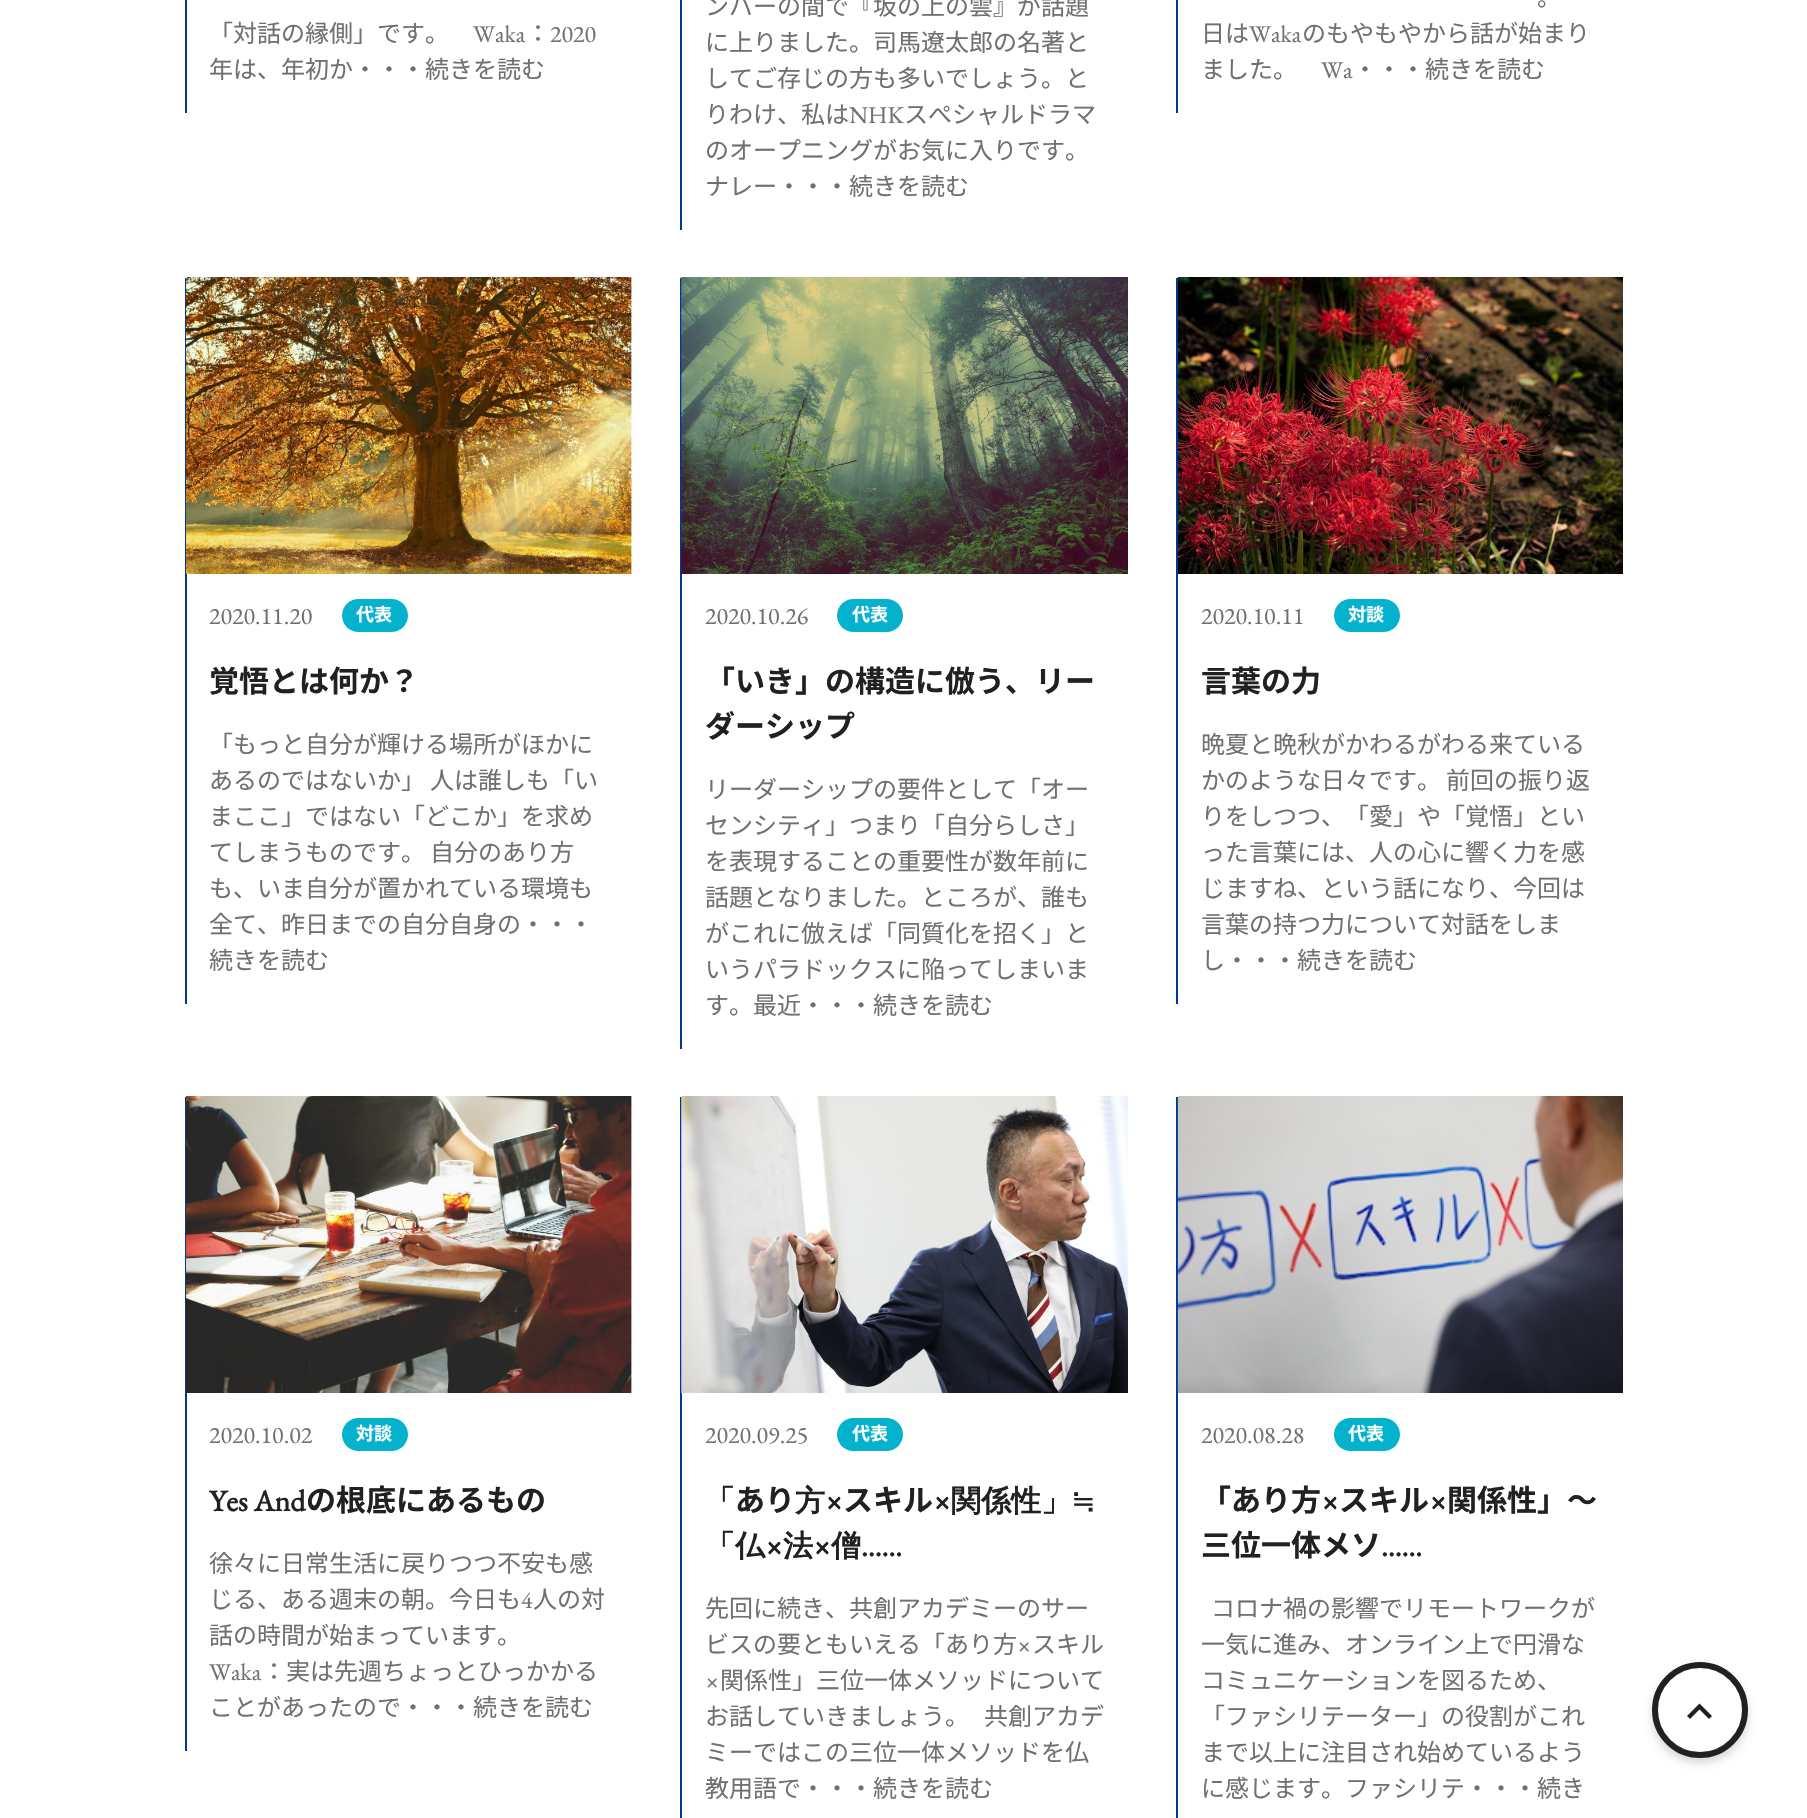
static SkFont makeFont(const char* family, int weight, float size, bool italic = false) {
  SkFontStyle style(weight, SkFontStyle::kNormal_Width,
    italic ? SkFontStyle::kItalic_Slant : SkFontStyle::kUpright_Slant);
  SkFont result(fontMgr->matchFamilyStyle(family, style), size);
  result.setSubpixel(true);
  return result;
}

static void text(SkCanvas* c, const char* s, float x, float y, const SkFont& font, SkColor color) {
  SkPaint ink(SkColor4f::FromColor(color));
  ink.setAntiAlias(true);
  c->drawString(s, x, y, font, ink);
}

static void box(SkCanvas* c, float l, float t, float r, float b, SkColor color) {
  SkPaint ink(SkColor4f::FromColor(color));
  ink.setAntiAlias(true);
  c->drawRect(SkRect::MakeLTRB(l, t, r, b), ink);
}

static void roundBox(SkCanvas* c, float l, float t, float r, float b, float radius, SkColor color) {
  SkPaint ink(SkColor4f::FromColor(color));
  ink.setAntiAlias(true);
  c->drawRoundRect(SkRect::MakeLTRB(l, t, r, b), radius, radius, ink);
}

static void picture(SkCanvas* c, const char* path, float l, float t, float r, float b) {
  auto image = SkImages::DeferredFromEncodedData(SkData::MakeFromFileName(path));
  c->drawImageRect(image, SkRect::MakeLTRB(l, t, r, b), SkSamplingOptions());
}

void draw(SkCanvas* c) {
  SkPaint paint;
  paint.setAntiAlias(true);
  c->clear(0xffffffff);
  box(c, 185, 0, 187, 113, 0xff003993);
  SkFont face1 = makeFont("Noto Sans JP", 400, 24);
  text(c, "「対話の縁側」です。", 209, 42, face1, 0xff707070);
  SkFont face2 = makeFont("EB Garamond", 400, 24);
  text(c, "Waka", 473, 42, face2, 0xff707070);
  text(c, "：", 526, 42, face1, 0xff707070);
  text(c, "2020", 550, 42, face2, 0xff707070);
  text(c, "年は、年初か・・・続きを読む", 209, 78, face1, 0xff707070);
  box(c, 680, 0, 682, 230, 0xff003993);
  text(c, "ンバーの間で『坂の上の雲』が話題", 705, 15, face1, 0xff707070);
  text(c, "に上りました。司馬遼太郎の名著と", 705, 51, face1, 0xff707070);
  text(c, "してご存じの方も多いでしょう。と", 705, 87, face1, 0xff707070);
  text(c, "りわけ、私は", 705, 123, face1, 0xff707070);
  text(c, "NHK", 849, 123, face2, 0xff707070);
  text(c, "スぺシャルドラマ", 904, 123, face1, 0xff707070);
  text(c, "のオープニングがお気に入りです。", 705, 159, face1, 0xff707070);
  text(c, "ナレー・・・続きを読む", 705, 195, face1, 0xff707070);
  box(c, 1176, 0, 1178, 113, 0xff003993);
  text(c, "。", 1537, 6, face1, 0xff707070);
  text(c, "日は", 1201, 42, face1, 0xff707070);
  text(c, "Waka", 1249, 42, face2, 0xff707070);
  text(c, "のもやもやから話が始まり", 1302, 42, face1, 0xff707070);
  text(c, "ました。", 1201, 78, face1, 0xff707070);
  text(c, "Wa", 1321, 78, face2, 0xff707070);
  text(c, "・・・続きを読む", 1353, 78, face1, 0xff707070);
  box(c, 185, 278, 187, 1004, 0xff003993);
  picture(c, "img_01.png", 186, 277, 632, 574);
  text(c, "2020.11.20", 209, 624, face2, 0xff707070);
  roundBox(c, 342, 599, 408, 632, 16.5f, 0xff05b2cd);
  SkFont face3 = makeFont("Noto Sans JP", 700, 18);
  text(c, "代表", 356, 621, face3, 0xffffffff);
  SkFont face4 = makeFont("Noto Sans JP", 700, 30);
  text(c, "覚悟とは何か？", 209, 692, face4, 0xff212121);
  text(c, "「もっと自分が輝ける場所がほかに", 209, 753, face1, 0xff707070);
  text(c, "あるのではないか」", 209, 789, face1, 0xff707070);
  text(c, "人は誰しも「い", 430, 789, face1, 0xff707070);
  text(c, "まここ」ではない「どこか」を求め", 209, 825, face1, 0xff707070);
  text(c, "てしまうものです。", 209, 861, face1, 0xff707070);
  text(c, "自分のあり方", 430, 861, face1, 0xff707070);
  text(c, "も、いま自分が置かれている環境も", 209, 897, face1, 0xff707070);
  text(c, "全て、昨日までの自分自身の・・・", 209, 933, face1, 0xff707070);
  text(c, "続きを読む", 209, 969, face1, 0xff707070);
  box(c, 680, 278, 682, 1049, 0xff003993);
  picture(c, "img_02.png", 681, 277, 1128, 574);
  text(c, "2020.10.26", 705, 624, face2, 0xff707070);
  roundBox(c, 837, 599, 903, 632, 16.5f, 0xff05b2cd);
  text(c, "代表", 852, 621, face3, 0xffffffff);
  text(c, "「いき」の構造に倣う、リー", 705, 692, face4, 0xff212121);
  text(c, "ダーシップ", 705, 737, face4, 0xff212121);
  text(c, "リーダーシップの要件として「オー", 705, 798, face1, 0xff707070);
  text(c, "センシティ」つまり「自分らしさ」", 705, 834, face1, 0xff707070);
  text(c, "を表現することの重要性が数年前に", 705, 870, face1, 0xff707070);
  text(c, "話題となりました。ところが、誰も", 705, 906, face1, 0xff707070);
  text(c, "がこれに倣えば「同質化を招く」と", 705, 942, face1, 0xff707070);
  text(c, "いうパラドックスに陥ってしまいま", 705, 978, face1, 0xff707070);
  text(c, "す。最近・・・続きを読む", 705, 1014, face1, 0xff707070);
  box(c, 1176, 278, 1178, 1004, 0xff003993);
  picture(c, "img_03.png", 1177, 277, 1623, 574);
  text(c, "2020.10.11", 1201, 624, face2, 0xff707070);
  roundBox(c, 1334, 599, 1400, 632, 16.5f, 0xff05b2cd);
  text(c, "対談", 1348, 621, face3, 0xffffffff);
  text(c, "言葉の力", 1201, 692, face4, 0xff212121);
  text(c, "晩夏と晩秋がかわるがわる来ている", 1201, 753, face1, 0xff707070);
  text(c, "かのような日々です。", 1201, 789, face1, 0xff707070);
  text(c, "前回の振り返", 1446, 789, face1, 0xff707070);
  text(c, "りをしつつ、「愛」や「覚悟」とい", 1201, 825, face1, 0xff707070);
  text(c, "った言葉には、人の心に響く力を感", 1201, 861, face1, 0xff707070);
  text(c, "じますね、という話になり、今回は", 1201, 897, face1, 0xff707070);
  text(c, "言葉の持つ力について対話をしま", 1201, 933, face1, 0xff707070);
  text(c, "し・・・続きを読む", 1201, 969, face1, 0xff707070);
  box(c, 185, 1097, 187, 1751, 0xff003993);
  picture(c, "img_04.png", 186, 1096, 632, 1393);
  text(c, "2020.10.02", 209, 1443, face2, 0xff707070);
  roundBox(c, 342, 1418, 408, 1451, 16.5f, 0xff05b2cd);
  text(c, "対談", 356, 1440, face3, 0xffffffff);
  SkFont face5 = makeFont("EB Garamond", 700, 30);
  text(c, "Yes And", 209, 1511, face5, 0xff212121);
  text(c, "の根底にあるもの", 306, 1511, face4, 0xff212121);
  text(c, "徐々に日常生活に戻りつつ不安も感", 209, 1572, face1, 0xff707070);
  text(c, "じる、ある週末の朝。今日も", 209, 1608, face1, 0xff707070);
  text(c, "4", 521, 1608, face2, 0xff707070);
  text(c, "人の対", 533, 1608, face1, 0xff707070);
  text(c, "話の時間が始まっています。", 209, 1644, face1, 0xff707070);
  text(c, "Waka", 209, 1680, face2, 0xff707070);
  text(c, "：実は先週ちょっとひっかかる", 262, 1680, face1, 0xff707070);
  text(c, "ことがあったので・・・続きを読む", 209, 1716, face1, 0xff707070);
  box(c, 680, 1097, 682, 1818, 0xff003993);
  picture(c, "img_05.png", 681, 1096, 1128, 1393);
  text(c, "2020.09.25", 705, 1443, face2, 0xff707070);
  roundBox(c, 837, 1418, 903, 1451, 16.5f, 0xff05b2cd);
  text(c, "代表", 852, 1440, face3, 0xffffffff);
  SkFont face6 = makeFont("WenQuanYi Zen Hei", 700, 30);
  text(c, "「", 705, 1511, face6, 0xff212121);
  text(c, "あり", 735, 1511, face4, 0xff212121);
  text(c, "方", 795, 1511, face6, 0xff212121);
  text(c, "×", 825, 1511, face5, 0xff212121);
  text(c, "スキル", 843, 1511, face4, 0xff212121);
  text(c, "×", 933, 1511, face5, 0xff212121);
  text(c, "関係性」≒", 951, 1511, face6, 0xff212121);
  text(c, "「仏", 705, 1556, face6, 0xff212121);
  text(c, "×", 765, 1556, face5, 0xff212121);
  text(c, "法", 783, 1556, face6, 0xff212121);
  text(c, "×", 813, 1556, face5, 0xff212121);
  text(c, "僧", 831, 1556, face6, 0xff212121);
  text(c, "……", 861, 1556, face5, 0xff212121);
  text(c, "先回に続き、共創アカデミーのサー", 705, 1617, face1, 0xff707070);
  text(c, "ビスの要ともいえる「あり方", 705, 1653, face1, 0xff707070);
  text(c, "×", 1017, 1653, face2, 0xff707070);
  text(c, "スキル", 1032, 1653, face1, 0xff707070);
  text(c, "×", 705, 1689, face2, 0xff707070);
  text(c, "関係性」三位一体メソッドについて", 720, 1689, face1, 0xff707070);
  text(c, "お話していきましょう。", 705, 1725, face1, 0xff707070);
  text(c, "共創アカデ", 984, 1725, face1, 0xff707070);
  text(c, "ミーではこの三位一体メソッドを仏", 705, 1761, face1, 0xff707070);
  text(c, "教用語で・・・続きを読む", 705, 1797, face1, 0xff707070);
  box(c, 1176, 1097, 1178, 1818, 0xff003993);
  picture(c, "img_06.png", 1177, 1096, 1623, 1393);
  text(c, "2020.08.28", 1201, 1443, face2, 0xff707070);
  roundBox(c, 1334, 1418, 1400, 1451, 16.5f, 0xff05b2cd);
  text(c, "代表", 1348, 1440, face3, 0xffffffff);
  text(c, "「あり方", 1201, 1511, face4, 0xff212121);
  text(c, "×", 1321, 1511, face5, 0xff212121);
  text(c, "スキル", 1339, 1511, face4, 0xff212121);
  text(c, "×", 1429, 1511, face5, 0xff212121);
  text(c, "関係性」〜", 1447, 1511, face4, 0xff212121);
  text(c, "三位一体メソ", 1201, 1556, face4, 0xff212121);
  text(c, "……", 1381, 1556, face5, 0xff212121);
  text(c, "コロナ禍の影響でリモートワークが", 1211, 1617, face1, 0xff707070);
  text(c, "一気に進み、オンライン上で円滑な", 1201, 1653, face1, 0xff707070);
  text(c, "コミュニケーションを図るため、", 1201, 1689, face1, 0xff707070);
  text(c, "「ファシリテーター」の役割がこれ", 1201, 1725, face1, 0xff707070);
  text(c, "まで以上に注目され始めているよう", 1201, 1761, face1, 0xff707070);
  text(c, "に感じます。ファシリテ・・・続き", 1201, 1797, face1, 0xff707070);
  paint.setColor(0x29000000);
  paint.setMaskFilter(SkMaskFilter::MakeBlur(kNormal_SkBlurStyle, 4.5f));
  c->drawRoundRect(SkRect::MakeLTRB(1652, 1667, 1748, 1763), 48, 48, paint);
  paint.setMaskFilter(nullptr);
  paint.setColor(0xffffffff);
  c->drawCircle(1700, 1710, 45, paint);
  paint.setStyle(SkPaint::kStroke_Style);
  paint.setStrokeWidth(6);
  paint.setColor(0xff212121);
  c->drawCircle(1700, 1710, 45, paint);
  paint.setStyle(SkPaint::kFill_Style);
  c->drawPath(SkPathBuilder().moveTo(1699.5f, 1703.5f).lineTo(1712, 1716).lineTo(1699.5f, 1728.5f).lineTo(1687, 1716).close().detach(), paint);
  paint.setColor(0xffffffff);
  c->drawPath(SkPathBuilder().moveTo(1699.5f, 1709.5f).lineTo(1712, 1722).lineTo(1699.5f, 1734.5f).lineTo(1687, 1722).close().detach(), paint);
}
